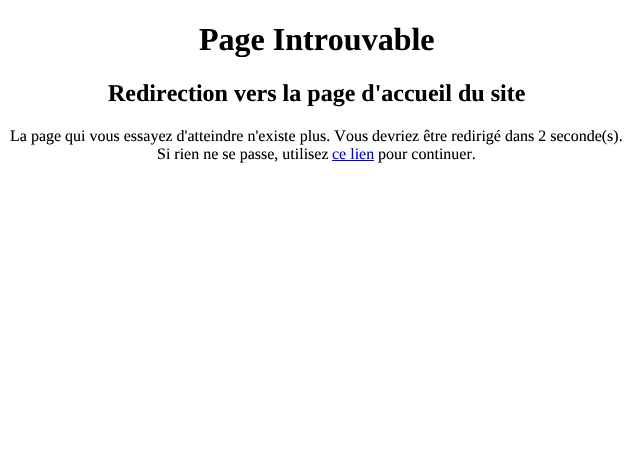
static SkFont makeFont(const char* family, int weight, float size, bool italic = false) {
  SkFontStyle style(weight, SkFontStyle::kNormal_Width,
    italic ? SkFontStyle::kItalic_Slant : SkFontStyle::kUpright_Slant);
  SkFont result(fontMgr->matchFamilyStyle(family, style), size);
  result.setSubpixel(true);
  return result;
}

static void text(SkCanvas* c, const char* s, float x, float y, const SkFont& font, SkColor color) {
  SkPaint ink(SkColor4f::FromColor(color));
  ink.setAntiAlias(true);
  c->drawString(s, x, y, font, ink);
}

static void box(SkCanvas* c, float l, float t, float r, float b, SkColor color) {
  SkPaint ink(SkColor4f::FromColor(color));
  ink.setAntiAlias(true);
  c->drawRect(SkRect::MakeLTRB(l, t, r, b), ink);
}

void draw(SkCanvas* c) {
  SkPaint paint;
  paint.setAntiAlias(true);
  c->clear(0xffffffff);
  SkFont face1 = makeFont("Liberation Serif", 700, 32);
  text(c, "Page Introuvable", 199, 50, face1, 0xff000000);
  SkFont face2 = makeFont("Liberation Serif", 700, 24);
  text(c, "Redirection vers la page d'accueil du site", 108, 101, face2, 0xff000000);
  SkFont face3 = makeFont("Liberation Serif", 400, 16);
  text(c, "La page qui vous essayez d'atteindre n'existe plus. Vous devriez être redirigé dans 2 seconde(s).", 10, 141, face3, 0xff000000);
  text(c, "Si rien ne se passe, utilisez", 157, 159, face3, 0xff000000);
  text(c, "ce lien", 332, 159, face3, 0xff0000ee);
  box(c, 332, 160, 374, 161, 0xff0000ee);
  text(c, "pour continuer.", 378, 159, face3, 0xff000000);
}
